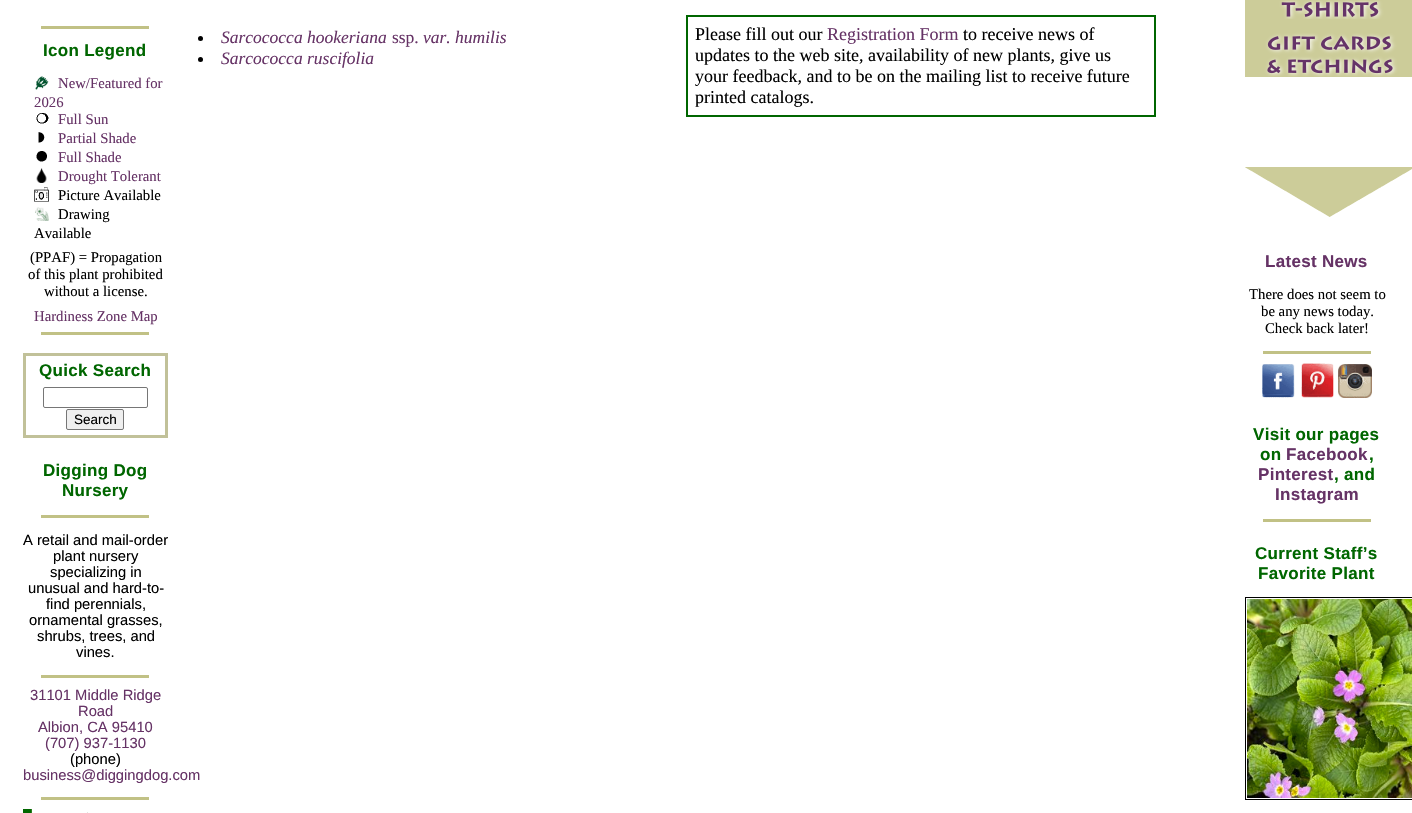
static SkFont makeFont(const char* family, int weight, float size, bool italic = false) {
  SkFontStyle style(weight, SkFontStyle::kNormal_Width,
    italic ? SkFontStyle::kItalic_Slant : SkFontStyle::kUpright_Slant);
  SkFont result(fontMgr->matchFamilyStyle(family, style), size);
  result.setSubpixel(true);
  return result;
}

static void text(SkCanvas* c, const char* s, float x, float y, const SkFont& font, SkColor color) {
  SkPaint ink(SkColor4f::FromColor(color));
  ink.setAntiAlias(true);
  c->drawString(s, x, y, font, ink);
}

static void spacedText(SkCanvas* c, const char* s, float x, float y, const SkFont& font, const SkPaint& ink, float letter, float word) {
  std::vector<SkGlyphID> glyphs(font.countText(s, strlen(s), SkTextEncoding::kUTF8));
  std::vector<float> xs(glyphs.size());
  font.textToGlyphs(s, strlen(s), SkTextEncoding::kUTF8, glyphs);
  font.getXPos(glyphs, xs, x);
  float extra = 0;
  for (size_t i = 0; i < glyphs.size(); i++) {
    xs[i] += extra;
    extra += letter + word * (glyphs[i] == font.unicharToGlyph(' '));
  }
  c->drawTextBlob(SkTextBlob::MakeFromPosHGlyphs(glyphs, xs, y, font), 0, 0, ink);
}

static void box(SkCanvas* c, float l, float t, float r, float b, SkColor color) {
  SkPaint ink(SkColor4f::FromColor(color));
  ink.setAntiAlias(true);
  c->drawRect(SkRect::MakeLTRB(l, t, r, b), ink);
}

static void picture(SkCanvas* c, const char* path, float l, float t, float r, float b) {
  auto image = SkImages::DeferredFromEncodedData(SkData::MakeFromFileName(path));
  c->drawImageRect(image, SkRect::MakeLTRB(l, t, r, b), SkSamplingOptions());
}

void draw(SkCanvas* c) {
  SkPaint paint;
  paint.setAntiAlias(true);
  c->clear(0xffffffff);
  box(c, 41, 26, 149, 29, 0xffc1c185);
  SkFont face1 = makeFont("Liberation Sans", 700, 17);
  paint.setColor(0xff006600);
  spacedText(c, "Icon Legend", 43, 56, face1, paint, 0.3f, 0);
  picture(c, "img_01.png", 35, 76, 49, 90);
  SkFont face2 = makeFont("Liberation Serif", 400, 14.75f);
  text(c, "New/Featured for", 58, 88, face2, 0xff663366);
  text(c, "2026", 34, 107, face2, 0xff663366);
  picture(c, "img_02.png", 36, 113, 49, 124);
  text(c, "Full Sun", 58, 124, face2, 0xff663366);
  picture(c, "img_03.png", 38, 132, 45, 143);
  text(c, "Partial Shade", 58, 143, face2, 0xff663366);
  picture(c, "img_04.png", 36, 151, 47, 162);
  text(c, "Full Shade", 58, 162, face2, 0xff663366);
  picture(c, "img_05.png", 36, 168, 47, 183);
  text(c, "Drought Tolerant", 58, 181, face2, 0xff663366);
  picture(c, "img_06.png", 34, 187, 49, 202);
  text(c, "Picture Available", 58, 200, face2, 0xff000000);
  picture(c, "img_07.png", 35, 207, 49, 221);
  text(c, "Drawing", 58, 219, face2, 0xff000000);
  text(c, "Available", 34, 238, face2, 0xff000000);
  text(c, "(PPAF) = Propagation", 30, 262, face2, 0xff000000);
  text(c, "of this plant prohibited", 28, 279, face2, 0xff000000);
  text(c, "without a license.", 44, 296, face2, 0xff000000);
  text(c, "Hardiness Zone Map", 34, 321, face2, 0xff663366);
  box(c, 41, 332, 149, 335, 0xffc1c185);
  paint.setStyle(SkPaint::kStroke_Style);
  paint.setStrokeWidth(3);
  paint.setColor(0xffc1c199);
  c->drawRect(SkRect::MakeLTRB(24.5f, 354.5f, 166.5f, 436.5f), paint);
  paint.setStyle(SkPaint::kFill_Style);
  paint.setColor(0xff006600);
  spacedText(c, "Quick Search", 39, 376, face1, paint, 0.3f, 0);
  paint.setStyle(SkPaint::kStroke_Style);
  paint.setStrokeWidth(1);
  paint.setColor(0xff767676);
  c->drawRoundRect(SkRect::MakeLTRB(43.5f, 387.5f, 147.5f, 407.5f), 1.5f, 1.5f, paint);
  paint.setStyle(SkPaint::kFill_Style);
  paint.setColor(0xffefefef);
  c->drawRoundRect(SkRect::MakeLTRB(66.5f, 409.5f, 123.5f, 429.5f), 1.5f, 1.5f, paint);
  paint.setStyle(SkPaint::kStroke_Style);
  paint.setColor(0xff767676);
  c->drawRoundRect(SkRect::MakeLTRB(66.5f, 409.5f, 123.5f, 429.5f), 1.5f, 1.5f, paint);
  SkFont face3 = makeFont("Liberation Sans", 400, 13.5f);
  text(c, "Search", 74, 424, face3, 0xff000000);
  paint.setStyle(SkPaint::kFill_Style);
  paint.setColor(0xff006600);
  spacedText(c, "Digging Dog", 43, 476, face1, paint, 0.3f, 0);
  spacedText(c, "Nursery", 62, 496, face1, paint, 0.3f, 0);
  box(c, 41, 515, 149, 518, 0xffc1c185);
  SkFont face4 = makeFont("Liberation Sans", 400, 14.75f);
  text(c, "A retail and mail-order", 23, 545, face4, 0xff000000);
  text(c, "plant nursery", 53, 561, face4, 0xff000000);
  text(c, "specializing in", 50, 577, face4, 0xff000000);
  text(c, "unusual and hard-to-", 28, 593, face4, 0xff000000);
  text(c, "find perennials,", 46, 609, face4, 0xff000000);
  text(c, "ornamental grasses,", 29, 625, face4, 0xff000000);
  text(c, "shrubs, trees, and", 37, 641, face4, 0xff000000);
  text(c, "vines.", 76, 657, face4, 0xff000000);
  box(c, 41, 675, 149, 678, 0xffc1c185);
  text(c, "31101 Middle Ridge", 30, 700, face4, 0xff663366);
  text(c, "Road", 78, 716, face4, 0xff663366);
  text(c, "Albion, CA 95410", 38, 732, face4, 0xff663366);
  text(c, "(707) 937-1130", 45, 748, face4, 0xff663366);
  text(c, "(phone)", 70, 764, face4, 0xff000000);
  text(c, "business@diggingdog.com", 23, 780, face4, 0xff663366);
  box(c, 41, 797, 149, 800, 0xffc1c185);
  picture(c, "img_08.png", 23, 809, 88, 813);
  paint.setColor(0xff000000);
  c->drawCircle(200.5f, 38.5f, 2.5f, paint);
  SkFont face5 = makeFont("Liberation Serif", 400, 17.5f, true);
  text(c, "Sarcococca hookeriana", 221, 43, face5, 0xff663366);
  SkFont face6 = makeFont("Liberation Serif", 400, 17.5f);
  text(c, "ssp.", 392, 43, face6, 0xff663366);
  text(c, "var. humilis", 423, 43, face5, 0xff663366);
  c->drawCircle(200.5f, 59.5f, 2.5f, paint);
  text(c, "Sarcococca ruscifolia", 221, 64, face5, 0xff663366);
  paint.setStyle(SkPaint::kStroke_Style);
  paint.setStrokeWidth(2);
  paint.setColor(0xff006600);
  c->drawRect(SkRect::MakeLTRB(687, 16, 1155, 116), paint);
  SkFont face7 = makeFont("Liberation Serif", 400, 18);
  text(c, "Please fill out our", 695, 40, face7, 0xff000000);
  text(c, "Registration Form", 827, 40, face7, 0xff663366);
  text(c, "to receive news of", 963, 40, face7, 0xff000000);
  text(c, "updates to the web site, availability of new plants, give us", 695, 61, face7, 0xff000000);
  text(c, "your feedback, and to be on the mailing list to receive future", 695, 82, face7, 0xff000000);
  text(c, "printed catalogs.", 695, 103, face7, 0xff000000);
  picture(c, "img_09.png", 1245, 0, 1412, 32);
  picture(c, "img_10.png", 1245, 32, 1412, 77);
  picture(c, "img_11.png", 1245, 167, 1412, 217);
  paint.setStyle(SkPaint::kFill_Style);
  paint.setColor(0xff663366);
  spacedText(c, "Latest News", 1265, 267, face1, paint, 0.3f, 0);
  text(c, "There does not seem to", 1249, 299, face2, 0xff000000);
  text(c, "be any news today.", 1261, 316, face2, 0xff000000);
  text(c, "Check back later!", 1265, 333, face2, 0xff000000);
  box(c, 1263, 351, 1371, 354, 0xffc1c185);
  picture(c, "img_12.png", 1262, 364, 1295, 398);
  picture(c, "img_13.png", 1301, 363, 1334, 398);
  picture(c, "img_14.png", 1338, 364, 1372, 398);
  paint.setColor(0xff006600);
  spacedText(c, "Visit our pages", 1253, 440, face1, paint, 0.3f, 0);
  spacedText(c, "on", 1260, 460, face1, paint, 0.3f, 0);
  paint.setColor(0xff663366);
  spacedText(c, "Facebook", 1286, 460, face1, paint, 0.3f, 0);
  paint.setColor(0xff006600);
  spacedText(c, ",", 1369, 460, face1, paint, 0.3f, 0);
  paint.setColor(0xff663366);
  spacedText(c, "Pinterest", 1258, 480, face1, paint, 0.3f, 0);
  paint.setColor(0xff006600);
  spacedText(c, ", and", 1334, 480, face1, paint, 0.3f, 0);
  paint.setColor(0xff663366);
  spacedText(c, "Instagram", 1275, 500, face1, paint, 0.3f, 0);
  box(c, 1263, 519, 1371, 522, 0xffc1c185);
  paint.setColor(0xff006600);
  spacedText(c, "Current Staff’s", 1255, 559, face1, paint, 0.3f, 0);
  spacedText(c, "Favorite Plant", 1258, 579, face1, paint, 0.3f, 0);
  paint.setStyle(SkPaint::kStroke_Style);
  paint.setStrokeWidth(1);
  paint.setColor(0xff000000);
  c->drawRect(SkRect::MakeLTRB(1245.5f, 597.5f, 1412.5f, 799.5f), paint);
  picture(c, "img_15.png", 1247, 599, 1412, 798);
}
